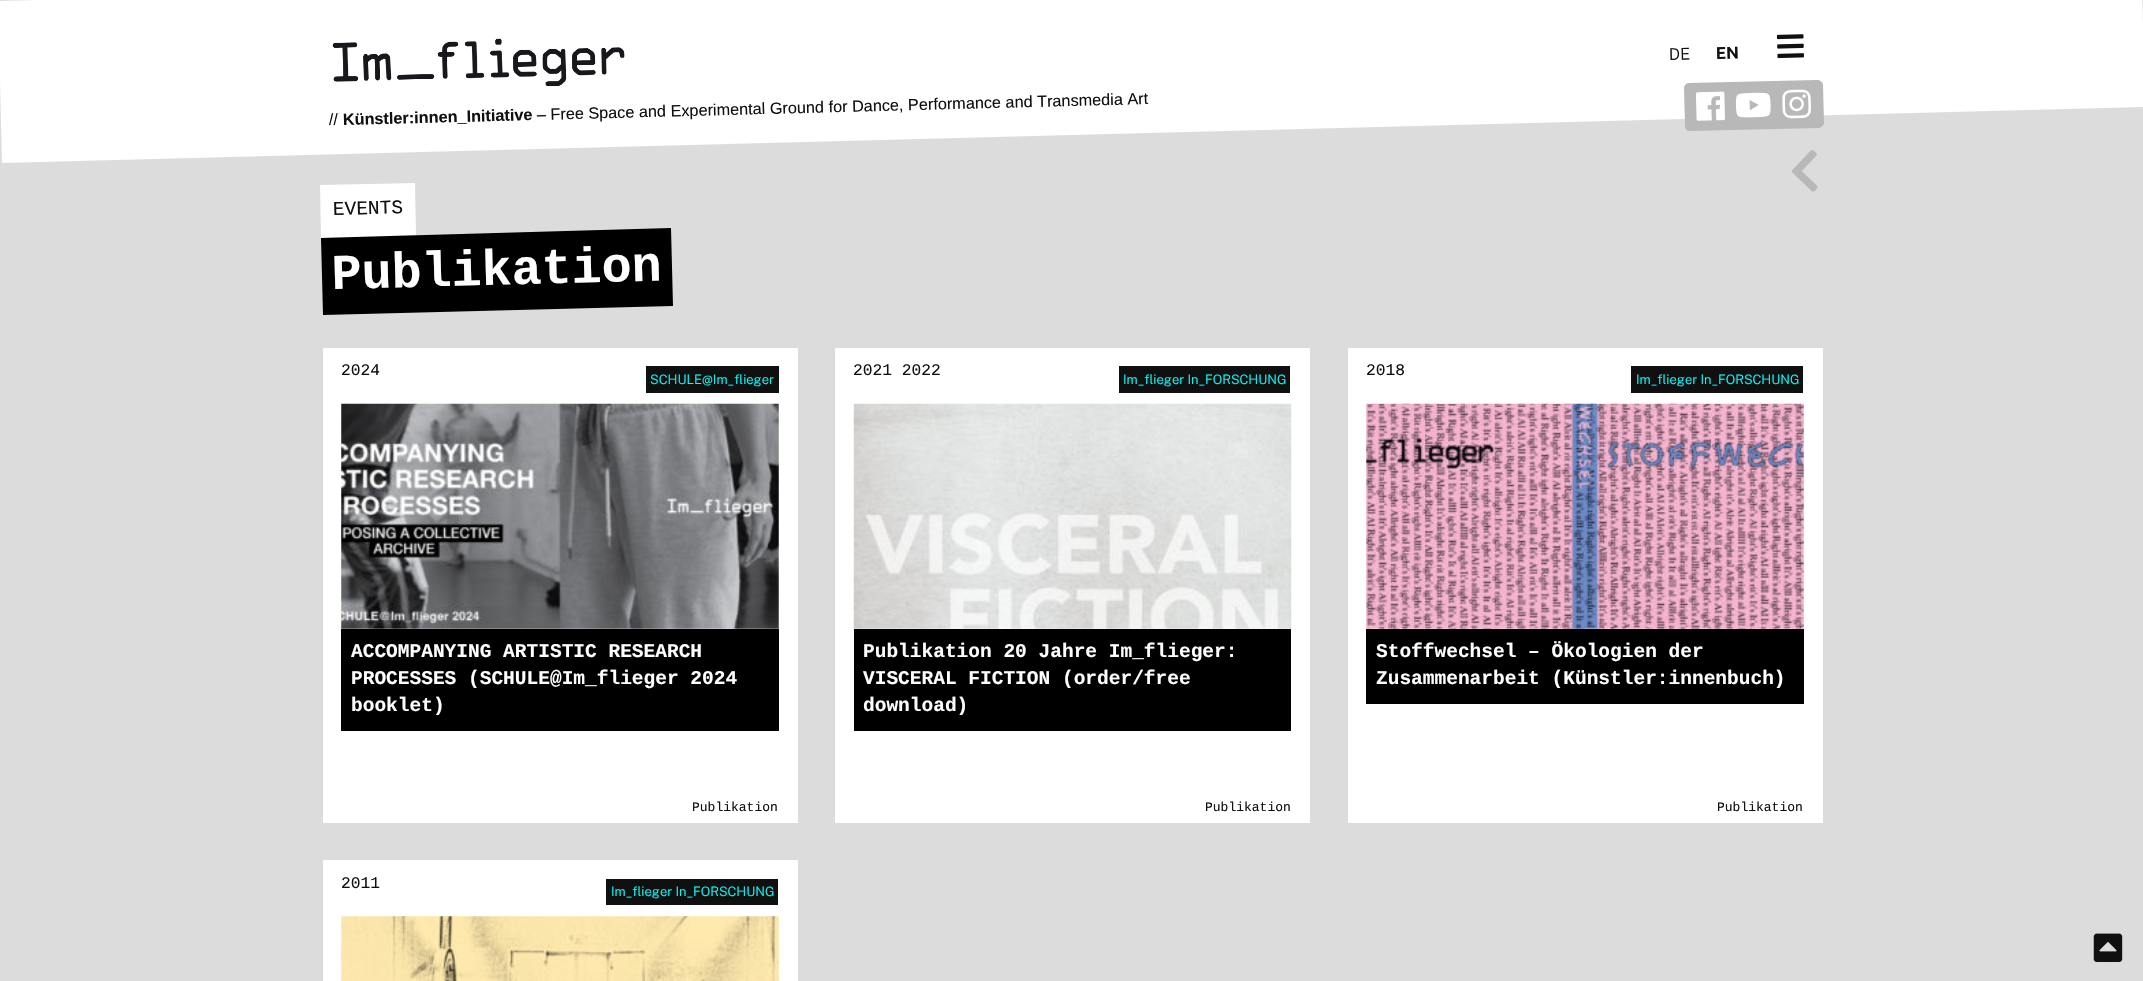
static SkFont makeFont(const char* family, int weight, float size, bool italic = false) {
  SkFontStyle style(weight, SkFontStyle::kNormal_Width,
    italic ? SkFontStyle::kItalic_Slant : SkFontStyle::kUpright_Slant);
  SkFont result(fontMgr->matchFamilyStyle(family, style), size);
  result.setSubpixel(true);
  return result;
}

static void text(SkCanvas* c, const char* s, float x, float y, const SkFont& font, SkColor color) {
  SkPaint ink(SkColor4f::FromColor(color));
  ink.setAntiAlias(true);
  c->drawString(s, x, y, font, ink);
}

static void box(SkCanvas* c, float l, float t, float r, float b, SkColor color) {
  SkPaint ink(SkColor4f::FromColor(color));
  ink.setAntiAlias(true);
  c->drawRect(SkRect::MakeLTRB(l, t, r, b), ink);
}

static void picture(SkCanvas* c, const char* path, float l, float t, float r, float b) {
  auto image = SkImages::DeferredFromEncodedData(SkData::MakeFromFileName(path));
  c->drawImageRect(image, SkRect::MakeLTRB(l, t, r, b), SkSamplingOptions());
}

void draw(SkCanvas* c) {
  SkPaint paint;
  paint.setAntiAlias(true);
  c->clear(0xffdcdcdc);
  picture(c, "img_06.png", 1792, 150, 1818, 192);
  paint.setColor(0xffffffff);
  c->drawPath(SkPathBuilder().moveTo(-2, 1).lineTo(2141, -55).lineTo(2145, 107).lineTo(2, 163).close().detach(), paint);
  picture(c, "img_01.png", 332, 38, 625, 87);
  SkFont face1 = makeFont("Public Sans", 300, 16.25f);
  c->save();
  c->rotate(-1.5f, 1669, 60);
  text(c, "DE", 1669, 60, face1, 0xff101010);
  c->restore();
  SkFont face2 = makeFont("Public Sans", 700, 16.25f);
  c->save();
  c->rotate(-1.5f, 1716, 59);
  text(c, "EN", 1716, 59, face2, 0xff101010);
  c->restore();
  picture(c, "img_02.png", 1776, 34, 1804, 59);
  SkFont face3 = makeFont("Liberation Sans", 400, 16.25f);
  c->save();
  c->rotate(-1.5f, 329, 125);
  text(c, "//", 329, 125, face3, 0xff101010);
  c->restore();
  SkFont face4 = makeFont("Liberation Sans", 700, 16.25f);
  c->save();
  c->rotate(-1.5f, 343, 125);
  text(c, "Künstler:innen_Initiative", 343, 125, face4, 0xff101010);
  c->restore();
  c->save();
  c->rotate(-1.5f, 537, 120);
  text(c, "– Free Space and Experimental Ground for Dance, Performance and Transmedia Art", 537, 120, face3, 0xff101010);
  c->restore();
  paint.setColor(0xffb8b8b8);
  c->drawPath(SkPathBuilder().moveTo(1689, 83).lineTo(1817, 80).cubicTo(1820, 80, 1823, 82, 1823, 85).lineTo(1824, 123).cubicTo(1824, 125, 1821, 128, 1819, 128).lineTo(1690, 131).cubicTo(1687, 131, 1685, 129, 1685, 126).lineTo(1684, 88).cubicTo(1684, 86, 1686, 83, 1689, 83).close().detach(), paint);
  picture(c, "img_03.png", 1695, 91, 1725, 121);
  picture(c, "img_04.png", 1735, 92, 1771, 118);
  picture(c, "img_05.png", 1782, 89, 1811, 119);
  paint.setColor(0xffffffff);
  c->drawPath(SkPathBuilder().moveTo(320, 185).lineTo(415, 183).lineTo(416, 235).lineTo(321, 238).close().detach(), paint);
  SkFont face5 = makeFont("Liberation Mono", 400, 19.5f);
  c->save();
  c->rotate(-1.5f, 333, 215);
  text(c, "EVENTS", 333, 215, face5, 0xff101010);
  c->restore();
  paint.setColor(0xff000000);
  c->drawPath(SkPathBuilder().moveTo(321, 238).lineTo(671, 228).lineTo(673, 306).lineTo(323, 315).close().detach(), paint);
  SkFont face6 = makeFont("Liberation Mono", 700, 50);
  c->save();
  c->rotate(-1.5f, 332, 289);
  text(c, "Publikation", 332, 289, face6, 0xffffffff);
  c->restore();
  box(c, 323, 348, 798, 823, 0xffffffff);
  SkFont face7 = makeFont("Liberation Mono", 400, 16.25f);
  text(c, "2024", 341, 375, face7, 0xff101010);
  box(c, 646, 366, 779, 393, 0xff101010);
  SkFont face8 = makeFont("Public Sans", 300, 13);
  text(c, "SCHULE@Im_flieger", 650, 384, face8, 0xff00ffff);
  picture(c, "img_07.png", 341, 403, 779, 629);
  box(c, 341, 629, 779, 731, 0xff000000);
  SkFont face9 = makeFont("Liberation Mono", 700, 19.5f);
  text(c, "ACCOMPANYING ARTISTIC RESEARCH", 351, 657, face9, 0xffffffff);
  text(c, "PROCESSES (SCHULE@Im_flieger 2024", 351, 684, face9, 0xffffffff);
  text(c, "booklet)", 351, 711, face9, 0xffffffff);
  SkFont face10 = makeFont("Liberation Mono", 400, 13);
  text(c, "Publikation", 692, 811, face10, 0xff101010);
  box(c, 835, 348, 1310, 823, 0xffffffff);
  text(c, "2021 2022", 853, 375, face7, 0xff101010);
  box(c, 1119, 366, 1290, 393, 0xff101010);
  text(c, "Im_flieger In_FORSCHUNG", 1123, 384, face8, 0xff00ffff);
  picture(c, "img_08.png", 853, 403, 1292, 629);
  box(c, 854, 629, 1291, 731, 0xff000000);
  text(c, "Publikation 20 Jahre Im_flieger:", 863, 657, face9, 0xffffffff);
  text(c, "VISCERAL FICTION (order/free", 863, 684, face9, 0xffffffff);
  text(c, "download)", 863, 711, face9, 0xffffffff);
  text(c, "Publikation", 1205, 811, face10, 0xff101010);
  box(c, 1348, 348, 1823, 823, 0xffffffff);
  text(c, "2018", 1366, 375, face7, 0xff101010);
  box(c, 1631, 366, 1803, 393, 0xff101010);
  text(c, "Im_flieger In_FORSCHUNG", 1636, 384, face8, 0xff00ffff);
  picture(c, "img_09.png", 1366, 403, 1804, 629);
  box(c, 1366, 629, 1804, 704, 0xff000000);
  text(c, "Stoffwechsel – Ökologien der", 1376, 657, face9, 0xffffffff);
  text(c, "Zusammenarbeit (Künstler:innenbuch)", 1376, 684, face9, 0xffffffff);
  text(c, "Publikation", 1717, 811, face10, 0xff101010);
  box(c, 323, 860, 798, 981, 0xffffffff);
  text(c, "2011", 341, 888, face7, 0xff101010);
  box(c, 606, 879, 778, 905, 0xff101010);
  text(c, "Im_flieger In_FORSCHUNG", 611, 896, face8, 0xff00ffff);
  picture(c, "img_10.png", 341, 916, 779, 981);
  picture(c, "img_11.png", 2093, 933, 2123, 962);
}
